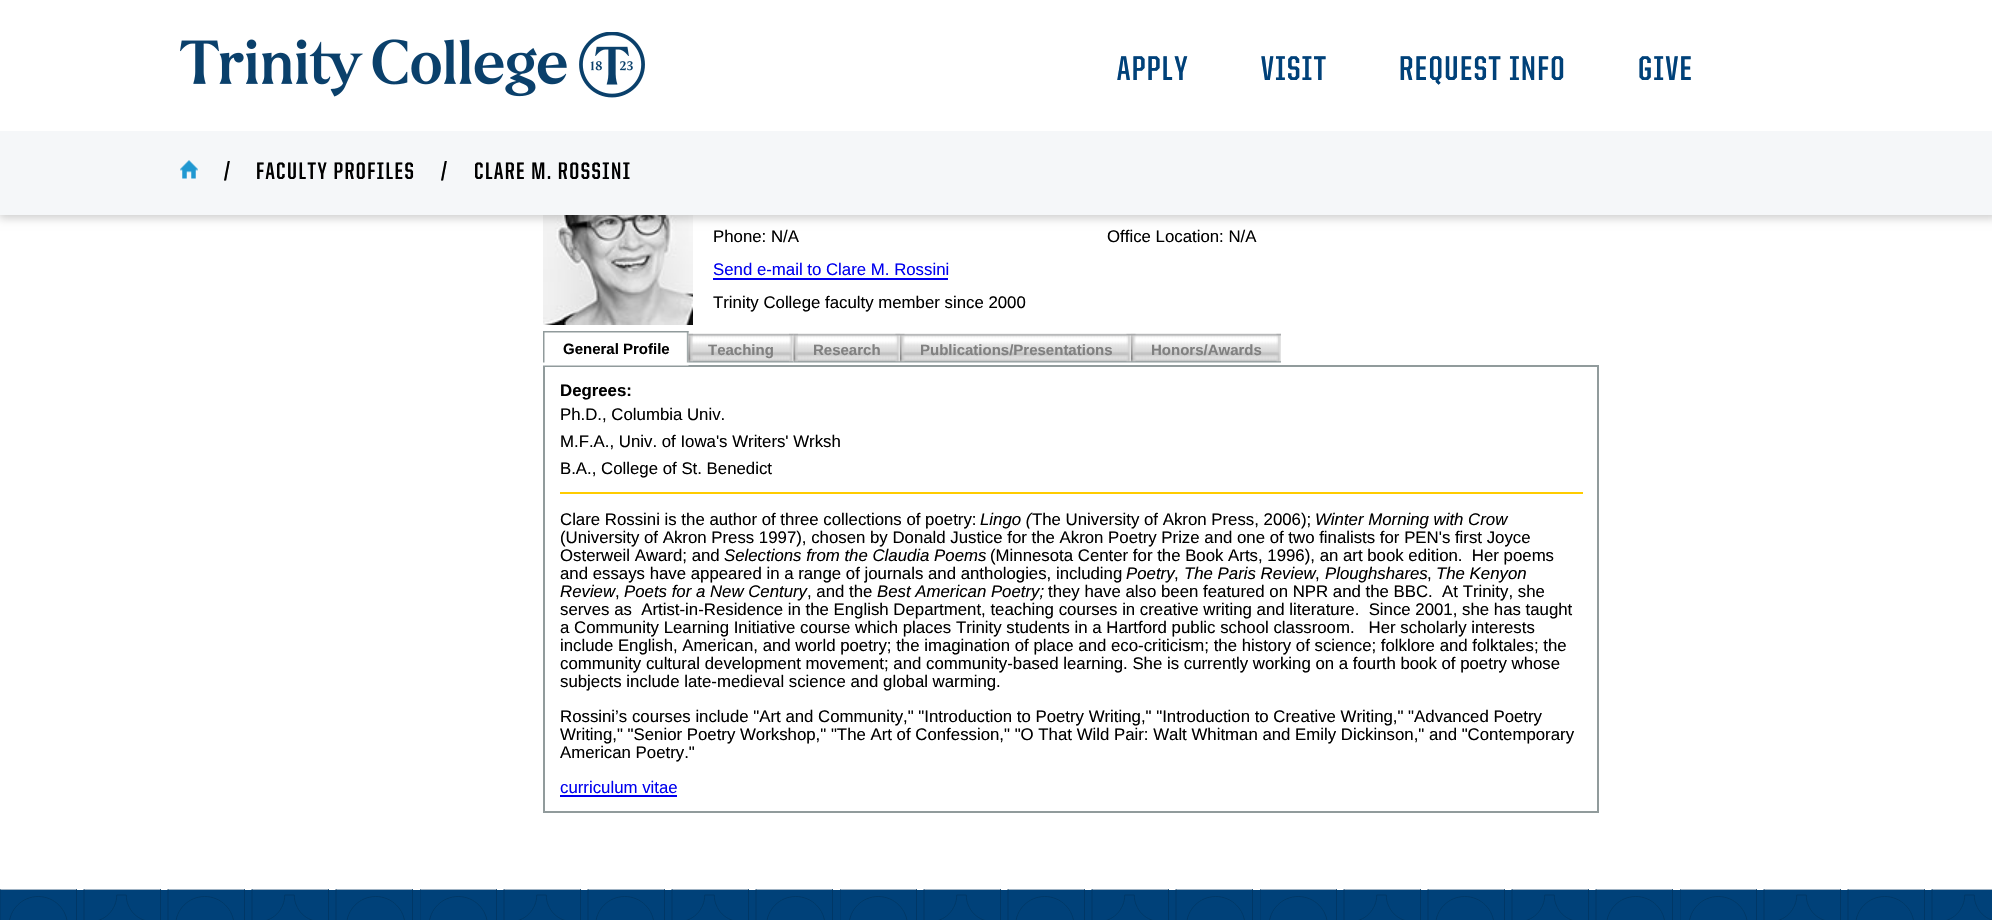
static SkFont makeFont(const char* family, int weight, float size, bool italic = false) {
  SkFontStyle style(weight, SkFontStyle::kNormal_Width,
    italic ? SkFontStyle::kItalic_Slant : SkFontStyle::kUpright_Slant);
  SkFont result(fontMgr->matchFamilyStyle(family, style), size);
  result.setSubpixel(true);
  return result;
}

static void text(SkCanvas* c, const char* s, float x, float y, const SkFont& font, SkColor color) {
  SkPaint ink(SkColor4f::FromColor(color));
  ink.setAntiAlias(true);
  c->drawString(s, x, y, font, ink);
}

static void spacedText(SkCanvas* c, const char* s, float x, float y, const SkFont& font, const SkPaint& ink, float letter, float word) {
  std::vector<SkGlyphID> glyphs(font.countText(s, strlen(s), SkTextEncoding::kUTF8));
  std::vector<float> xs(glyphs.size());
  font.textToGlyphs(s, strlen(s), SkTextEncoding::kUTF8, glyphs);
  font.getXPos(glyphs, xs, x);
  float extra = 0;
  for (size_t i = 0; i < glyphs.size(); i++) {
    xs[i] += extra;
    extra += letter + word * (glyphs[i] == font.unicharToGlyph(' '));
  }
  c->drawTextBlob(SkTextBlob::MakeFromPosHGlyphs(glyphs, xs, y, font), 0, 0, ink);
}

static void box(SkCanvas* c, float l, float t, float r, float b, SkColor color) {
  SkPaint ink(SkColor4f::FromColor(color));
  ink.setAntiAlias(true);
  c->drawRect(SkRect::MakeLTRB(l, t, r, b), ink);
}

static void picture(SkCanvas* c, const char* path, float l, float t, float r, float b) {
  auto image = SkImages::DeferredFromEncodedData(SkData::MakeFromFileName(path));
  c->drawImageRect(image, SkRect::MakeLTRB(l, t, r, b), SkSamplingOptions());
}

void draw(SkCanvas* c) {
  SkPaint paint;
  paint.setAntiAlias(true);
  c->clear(0xffffffff);
  picture(c, "img_03.png", 543, 215, 693, 325);
  paint.setColor(0x33000000);
  paint.setMaskFilter(SkMaskFilter::MakeBlur(kNormal_SkBlurStyle, 4.5f));
  c->drawRect(SkRect::MakeLTRB(-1, -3, 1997, 218), paint);
  paint.setMaskFilter(nullptr);
  box(c, 0, 0, 1992, 131, 0xffffffff);
  picture(c, "img_01.png", 180, 32, 645, 98);
  SkFont face1 = makeFont("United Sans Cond", 700, 34.5f);
  paint.setColor(0xff004179);
  spacedText(c, "APPLY", 1117, 80, face1, paint, 1.5f, 0);
  spacedText(c, "VISIT", 1261, 80, face1, paint, 1.5f, 0);
  spacedText(c, "REQUEST INFO", 1399, 80, face1, paint, 1.5f, 0);
  spacedText(c, "GIVE", 1638, 80, face1, paint, 1.5f, 0);
  box(c, 0, 131, 1992, 215, 0xfff5f7f9);
  picture(c, "img_02.png", 180, 160, 198, 179);
  SkFont face2 = makeFont("United Sans Cond", 700, 24);
  paint.setColor(0xff000000);
  spacedText(c, "/", 224, 179, face2, paint, 1.5f, 0);
  spacedText(c, "FACULTY PROFILES", 256, 179, face2, paint, 1.5f, 0);
  spacedText(c, "/", 441, 179, face2, paint, 1.5f, 0);
  spacedText(c, "CLARE M. ROSSINI", 474, 179, face2, paint, 1.5f, 0);
  SkFont face3 = makeFont("Liberation Sans", 400, 16.8f);
  text(c, "Phone: N/A", 713, 242, face3, 0xff000000);
  text(c, "Office Location: N/A", 1107, 242, face3, 0xff000000);
  text(c, "Send e-mail to Clare M. Rossini", 713, 275, face3, 0xff0000ee);
  box(c, 713, 278, 948, 280, 0xff0000ee);
  text(c, "Trinity College faculty member since 2000", 713, 308, face3, 0xff000000);
  paint.setStyle(SkPaint::kStroke_Style);
  paint.setStrokeWidth(2);
  paint.setColor(0xff919b9c);
  c->drawRect(SkRect::MakeLTRB(544, 366, 1598, 812), paint);
  picture(c, "img_04.png", 543, 331, 689, 366);
  picture(c, "img_05.png", 543, 332, 545, 363);
  SkFont face4 = makeFont("Liberation Sans", 700, 15);
  text(c, "General Profile", 563, 354, face4, 0xff000000);
  picture(c, "img_07.png", 688, 333, 794, 363);
  picture(c, "img_06.png", 686, 331, 689, 363);
  picture(c, "img_08.png", 688, 333, 693, 362);
  text(c, "Teaching", 708, 355, face4, 0xff808080);
  picture(c, "img_10.png", 793, 333, 900, 363);
  picture(c, "img_09.png", 789, 333, 794, 362);
  picture(c, "img_11.png", 793, 333, 798, 362);
  text(c, "Research", 813, 355, face4, 0xff808080);
  picture(c, "img_12.png", 895, 333, 900, 362);
  picture(c, "img_13.png", 900, 333, 1131, 363);
  picture(c, "img_14.png", 900, 333, 905, 362);
  text(c, "Publications/Presentations", 920, 355, face4, 0xff808080);
  picture(c, "img_15.png", 1126, 333, 1131, 362);
  picture(c, "img_16.png", 1131, 333, 1281, 363);
  picture(c, "img_17.png", 1131, 333, 1136, 362);
  text(c, "Honors/Awards", 1151, 355, face4, 0xff808080);
  picture(c, "img_18.png", 1276, 333, 1281, 362);
  SkFont face5 = makeFont("Liberation Sans", 700, 16.8f);
  text(c, "Degrees:", 560, 396, face5, 0xff000000);
  text(c, "Ph.D., Columbia Univ.", 560, 420, face3, 0xff000000);
  text(c, "M.F.A., Univ. of Iowa's Writers' Wrksh", 560, 447, face3, 0xff000000);
  text(c, "B.A., College of St. Benedict", 560, 474, face3, 0xff000000);
  box(c, 560, 492, 1583, 494, 0xffffcc00);
  text(c, "Clare Rossini is the author of three collections of poetry:", 560, 525, face3, 0xff000000);
  SkFont face6 = makeFont("Liberation Sans", 400, 16.8f, true);
  text(c, "Lingo (", 980, 525, face6, 0xff000000);
  text(c, "The University of Akron Press, 2006);", 1032, 525, face3, 0xff000000);
  text(c, "Winter Morning with Crow", 1315, 525, face6, 0xff000000);
  text(c, "(University of Akron Press 1997), chosen by Donald Justice for the Akron Poetry Prize and one of two finalists for PEN's first Joyce", 560, 543, face3, 0xff000000);
  text(c, "Osterweil Award; and", 560, 561, face3, 0xff000000);
  text(c, "Selections from the Claudia Poems", 724, 561, face6, 0xff000000);
  text(c, "(Minnesota Center for the Book Arts, 1996), an art book edition.  Her poems", 990, 561, face3, 0xff000000);
  text(c, "and essays have appeared in a range of journals and anthologies, including", 560, 579, face3, 0xff000000);
  text(c, "Poetry", 1126, 579, face6, 0xff000000);
  text(c, ",", 1174, 579, face3, 0xff000000);
  text(c, "The Paris Review", 1184, 579, face6, 0xff000000);
  text(c, ",", 1315, 579, face3, 0xff000000);
  text(c, "Ploughshares", 1325, 579, face6, 0xff000000);
  text(c, ",", 1427, 579, face3, 0xff000000);
  text(c, "The Kenyon", 1436, 579, face6, 0xff000000);
  text(c, "Review", 560, 597, face6, 0xff000000);
  text(c, ",", 615, 597, face3, 0xff000000);
  text(c, "Poets for a New Century", 624, 597, face6, 0xff000000);
  text(c, ", and the", 807, 597, face3, 0xff000000);
  text(c, "Best American Poetry;", 877, 597, face6, 0xff000000);
  text(c, "they have also been featured on NPR and the BBC.  At Trinity, she", 1048, 597, face3, 0xff000000);
  text(c, "serves as  Artist-in-Residence in the English Department, teaching courses in creative writing and literature.  Since 2001, she has taught", 560, 615, face3, 0xff000000);
  text(c, "a Community Learning Initiative course which places Trinity students in a Hartford public school classroom.   Her scholarly interests", 560, 633, face3, 0xff000000);
  text(c, "include English, American, and world poetry; the imagination of place and eco-criticism; the history of science; folklore and folktales; the", 560, 651, face3, 0xff000000);
  text(c, "community cultural development movement; and community-based learning. She is currently working on a fourth book of poetry whose", 560, 669, face3, 0xff000000);
  text(c, "subjects include late-medieval science and global warming.", 560, 687, face3, 0xff000000);
  text(c, "Rossini’s courses include \"Art and Community,\" \"Introduction to Poetry Writing,\" \"Introduction to Creative Writing,\" \"Advanced Poetry", 560, 722, face3, 0xff000000);
  text(c, "Writing,\" \"Senior Poetry Workshop,\" \"The Art of Confession,\" \"O That Wild Pair: Walt Whitman and Emily Dickinson,\" and \"Contemporary", 560, 740, face3, 0xff000000);
  text(c, "American Poetry.\"", 560, 758, face3, 0xff000000);
  text(c, "curriculum vitae", 560, 793, face3, 0xff0000ee);
  box(c, 560, 795, 677, 797, 0xff0000ee);
  box(c, 0, 890, 1992, 920, 0xff004179);
  picture(c, "img_19.png", 0, 889, 1992, 920);
}
